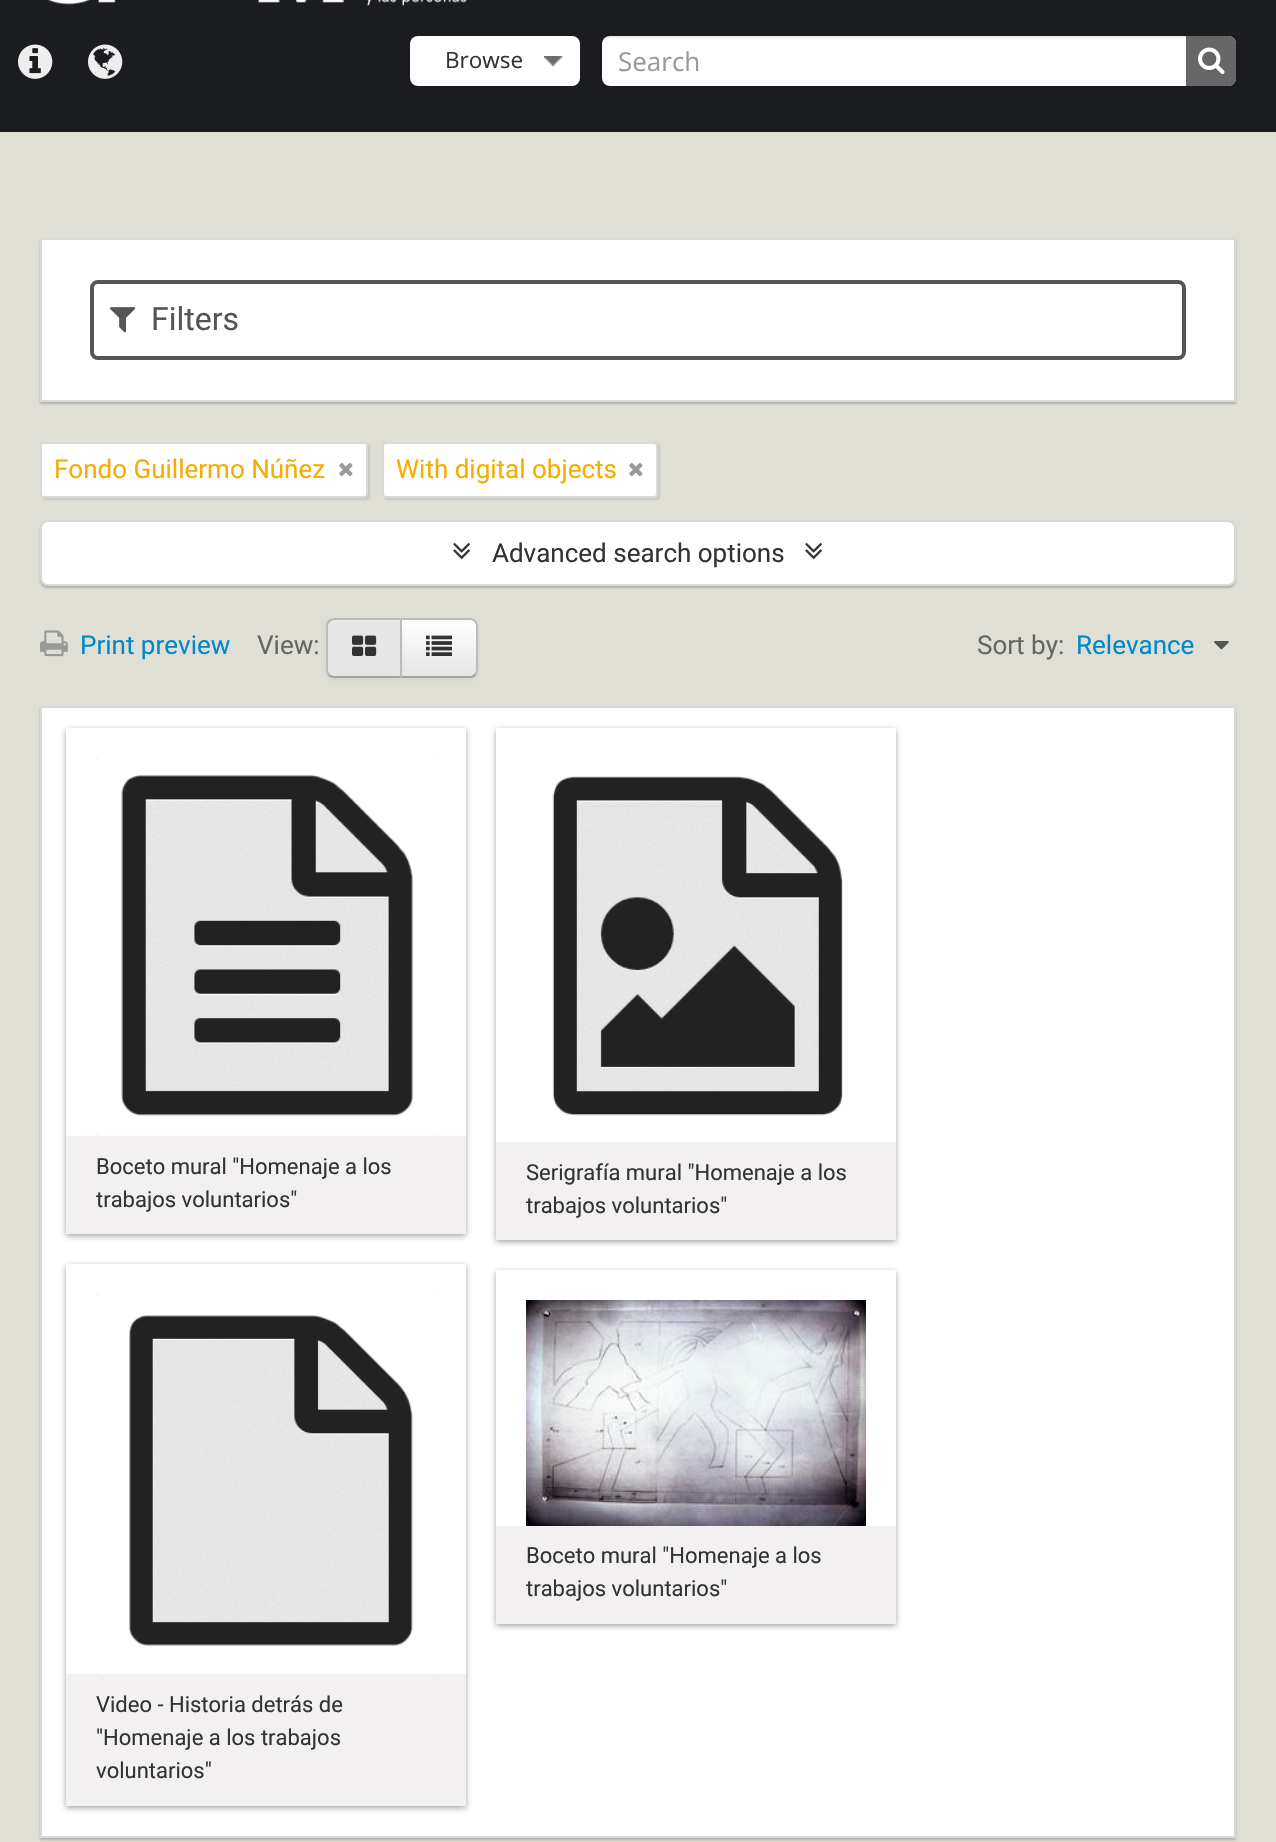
static SkFont makeFont(const char* family, int weight, float size, bool italic = false) {
  SkFontStyle style(weight, SkFontStyle::kNormal_Width,
    italic ? SkFontStyle::kItalic_Slant : SkFontStyle::kUpright_Slant);
  SkFont result(fontMgr->matchFamilyStyle(family, style), size);
  result.setSubpixel(true);
  return result;
}

static void text(SkCanvas* c, const char* s, float x, float y, const SkFont& font, SkColor color) {
  SkPaint ink(SkColor4f::FromColor(color));
  ink.setAntiAlias(true);
  c->drawString(s, x, y, font, ink);
}

static void box(SkCanvas* c, float l, float t, float r, float b, SkColor color) {
  SkPaint ink(SkColor4f::FromColor(color));
  ink.setAntiAlias(true);
  c->drawRect(SkRect::MakeLTRB(l, t, r, b), ink);
}

static void roundBox(SkCanvas* c, float l, float t, float r, float b, float radius, SkColor color) {
  SkPaint ink(SkColor4f::FromColor(color));
  ink.setAntiAlias(true);
  c->drawRoundRect(SkRect::MakeLTRB(l, t, r, b), radius, radius, ink);
}

static void picture(SkCanvas* c, const char* path, float l, float t, float r, float b) {
  auto image = SkImages::DeferredFromEncodedData(SkData::MakeFromFileName(path));
  c->drawImageRect(image, SkRect::MakeLTRB(l, t, r, b), SkSamplingOptions());
}

void draw(SkCanvas* c) {
  SkPaint paint;
  paint.setAntiAlias(true);
  c->clear(0xffe0dfd6);
  box(c, 0, 0, 1276, 132, 0xff1b1c20);
  picture(c, "img_01.png", 48, 0, 467, 6);
  picture(c, "img_02.png", 18, 44, 53, 79);
  picture(c, "img_03.png", 88, 44, 123, 79);
  roundBox(c, 410, 36, 580, 86, 8, 0xffffffff);
  picture(c, "img_04.png", 544, 56, 563, 66);
  SkFont face1 = makeFont("Open Sans", 400, 22.5f);
  text(c, "Browse", 445, 68, face1, 0xff333333);
  roundBox(c, 602, 36, 1236, 86, 8, 0xffffffff);
  paint.setColor(0x12000000);
  c->drawPath(SkPathBuilder().moveTo(610, 38).lineTo(1228, 38).cubicTo(1232, 38, 1236, 42, 1236, 46).lineTo(1236, 44).cubicTo(1236, 40, 1232, 36, 1228, 36).lineTo(610, 36).cubicTo(606, 36, 602, 40, 602, 44).lineTo(602, 46).cubicTo(602, 42, 606, 38, 610, 38).close().detach(), paint);
  SkFont face2 = makeFont("Open Sans", 400, 26);
  text(c, "Search", 618, 71, face2, 0xff999999);
  paint.setColor(0xff666666);
  c->drawPath(SkPathBuilder().moveTo(1186, 36).lineTo(1228, 36).cubicTo(1232.5f, 36, 1236, 39.5f, 1236, 44).lineTo(1236, 78).cubicTo(1236, 82.5f, 1232.5f, 86, 1228, 86).lineTo(1186, 86).close().detach(), paint);
  picture(c, "img_05.png", 1198, 47, 1225, 75);
  paint.setColor(0x33000000);
  paint.setMaskFilter(SkMaskFilter::MakeBlur(kNormal_SkBlurStyle, 1));
  c->drawRect(SkRect::MakeLTRB(40, 240, 1236, 404), paint);
  paint.setMaskFilter(nullptr);
  paint.setColor(0xffffffff);
  c->drawRect(SkRect::MakeLTRB(41, 239, 1235, 401), paint);
  paint.setStyle(SkPaint::kStroke_Style);
  paint.setStrokeWidth(2);
  paint.setColor(0xffd9d9d9);
  c->drawRect(SkRect::MakeLTRB(41, 239, 1235, 401), paint);
  paint.setStrokeWidth(4);
  paint.setColor(0xff555555);
  c->drawRoundRect(SkRect::MakeLTRB(92, 282, 1184, 358), 6, 6, paint);
  picture(c, "img_06.png", 110, 307, 136, 333);
  SkFont face3 = makeFont("Roboto", 400, 32);
  text(c, "Filters", 151, 330, face3, 0xff555555);
  paint.setStyle(SkPaint::kFill_Style);
  paint.setColor(0x1a000000);
  paint.setMaskFilter(SkMaskFilter::MakeBlur(kNormal_SkBlurStyle, 1));
  c->drawRoundRect(SkRect::MakeLTRB(42, 444, 370, 500), 4, 4, paint);
  paint.setMaskFilter(nullptr);
  paint.setColor(0xffffffff);
  c->drawRoundRect(SkRect::MakeLTRB(41, 443, 367, 497), 3, 3, paint);
  paint.setStyle(SkPaint::kStroke_Style);
  paint.setStrokeWidth(2);
  paint.setColor(0xffd9d9d9);
  c->drawRoundRect(SkRect::MakeLTRB(41, 443, 367, 497), 3, 3, paint);
  SkFont face4 = makeFont("Roboto", 400, 26);
  text(c, "Fondo Guillermo Núñez", 54, 478, face4, 0xfff6ac00);
  picture(c, "img_07.png", 339, 463, 353, 477);
  paint.setStyle(SkPaint::kFill_Style);
  paint.setColor(0x1a000000);
  paint.setMaskFilter(SkMaskFilter::MakeBlur(kNormal_SkBlurStyle, 1));
  c->drawRoundRect(SkRect::MakeLTRB(384, 444, 660, 500), 4, 4, paint);
  paint.setMaskFilter(nullptr);
  paint.setColor(0xffffffff);
  c->drawRoundRect(SkRect::MakeLTRB(383, 443, 657, 497), 3, 3, paint);
  paint.setStyle(SkPaint::kStroke_Style);
  paint.setColor(0xffd9d9d9);
  c->drawRoundRect(SkRect::MakeLTRB(383, 443, 657, 497), 3, 3, paint);
  text(c, "With digital objects", 396, 478, face4, 0xfff6ac00);
  picture(c, "img_07.png", 629, 463, 643, 477);
  paint.setStyle(SkPaint::kFill_Style);
  paint.setColor(0x33000000);
  paint.setMaskFilter(SkMaskFilter::MakeBlur(kNormal_SkBlurStyle, 1));
  c->drawRoundRect(SkRect::MakeLTRB(40, 522, 1236, 588), 8, 8, paint);
  paint.setMaskFilter(nullptr);
  paint.setColor(0xffffffff);
  c->drawRoundRect(SkRect::MakeLTRB(41, 521, 1235, 585), 7, 7, paint);
  paint.setStyle(SkPaint::kStroke_Style);
  paint.setColor(0xffd9d9d9);
  c->drawRoundRect(SkRect::MakeLTRB(41, 521, 1235, 585), 7, 7, paint);
  picture(c, "img_08.png", 453, 543, 470, 560);
  text(c, "Advanced search options", 492, 562, face4, 0xff333333);
  picture(c, "img_08.png", 805, 543, 822, 560);
  picture(c, "img_09.png", 40, 630, 68, 657);
  text(c, "Print preview", 80, 654, face4, 0xff0088cc);
  text(c, "View:", 257, 654, face4, 0xff666666);
  paint.setStyle(SkPaint::kFill_Style);
  paint.setColor(0x0d000000);
  paint.setMaskFilter(SkMaskFilter::MakeBlur(kNormal_SkBlurStyle, 2));
  c->drawRoundRect(SkRect::MakeLTRB(400, 620, 478, 680), 8, 8, paint);
  paint.setMaskFilter(nullptr);
  c->save();
  c->clipPath(SkPathBuilder().moveTo(400, 618).lineTo(470, 618).cubicTo(474.5f, 618, 478, 621.5f, 478, 626).lineTo(478, 670).cubicTo(478, 674.5f, 474.5f, 678, 470, 678).lineTo(400, 678).close().detach(), true);
  {
    const SkColor colors[] = {0xffffffff, 0xffe6e6e6};
    const float stops[] = {0, 1};
    const SkPoint ends[] = {{439, 620}, {439, 676}};
    paint.setShader(SkGradientShader::MakeLinear(ends, colors, stops, 2, SkTileMode::kClamp));
    paint.setAlpha(255);
  }
  c->drawRect(SkRect::MakeLTRB(402, 620, 478, 676), paint);
  c->restore();
  paint.setShader(nullptr);
  paint.setColor(0xffbbbbbb);
  c->drawPath(SkPathBuilder().moveTo(400, 618).lineTo(402, 620).lineTo(470, 620).cubicTo(472, 620, 473, 621, 474, 622).lineTo(476, 620).cubicTo(474, 619, 472, 618, 470, 618).close().detach(), paint);
  c->drawPath(SkPathBuilder().moveTo(478, 670).lineTo(478, 626).cubicTo(478, 624, 477, 622, 476, 620).lineTo(474, 622).cubicTo(475, 623, 476, 624, 476, 626).lineTo(476, 670).cubicTo(476, 672, 475, 673, 474, 674).lineTo(476, 676).cubicTo(477, 674, 478, 672, 478, 670).close().detach(), paint);
  paint.setColor(0xffa2a2a2);
  c->drawPath(SkPathBuilder().moveTo(470, 678).cubicTo(472, 678, 474, 677, 476, 676).lineTo(474, 674).cubicTo(473, 675, 472, 676, 470, 676).lineTo(402, 676).lineTo(400, 678).close().detach(), paint);
  paint.setColor(0x0d000000);
  paint.setMaskFilter(SkMaskFilter::MakeBlur(kNormal_SkBlurStyle, 2));
  c->drawRoundRect(SkRect::MakeLTRB(326, 620, 402, 680), 8, 8, paint);
  paint.setMaskFilter(nullptr);
  paint.setColor(0xffe6e6e6);
  c->drawPath(SkPathBuilder().moveTo(334, 618).lineTo(402, 618).lineTo(402, 678).lineTo(334, 678).cubicTo(329.5f, 678, 326, 674.5f, 326, 670).lineTo(326, 626).cubicTo(326, 621.5f, 329.5f, 618, 334, 618).close().detach(), paint);
  paint.setColor(0xffbbbbbb);
  c->drawPath(SkPathBuilder().moveTo(334, 618).cubicTo(332, 618, 330, 619, 328, 620).lineTo(330, 622).cubicTo(331, 621, 332, 620, 334, 620).lineTo(400, 620).lineTo(402, 618).close().detach(), paint);
  c->drawPath(SkPathBuilder().moveTo(402, 618).lineTo(400, 620).lineTo(400, 676).lineTo(402, 678).close().detach(), paint);
  paint.setColor(0xffa2a2a2);
  c->drawPath(SkPathBuilder().moveTo(402, 678).lineTo(400, 676).lineTo(334, 676).cubicTo(332, 676, 331, 675, 330, 674).lineTo(328, 676).cubicTo(330, 677, 332, 678, 334, 678).close().detach(), paint);
  paint.setColor(0xffbbbbbb);
  c->drawPath(SkPathBuilder().moveTo(326, 626).lineTo(326, 670).cubicTo(326, 672, 327, 674, 328, 676).lineTo(330, 674).cubicTo(329, 673, 328, 672, 328, 670).lineTo(328, 626).cubicTo(328, 624, 329, 623, 330, 622).lineTo(328, 620).cubicTo(327, 622, 326, 624, 326, 626).close().detach(), paint);
  picture(c, "img_10.png", 352, 635, 377, 656);
  picture(c, "img_11.png", 426, 635, 452, 656);
  text(c, "Sort by:", 977, 654, face4, 0xff666666);
  text(c, "Relevance", 1076, 654, face4, 0xff0088cc);
  picture(c, "img_12.png", 1214, 641, 1229, 650);
  paint.setColor(0x33000000);
  paint.setMaskFilter(SkMaskFilter::MakeBlur(kNormal_SkBlurStyle, 1));
  c->drawRect(SkRect::MakeLTRB(40, 708, 1236, 1840), paint);
  paint.setMaskFilter(nullptr);
  paint.setColor(0xffffffff);
  c->drawRect(SkRect::MakeLTRB(41, 707, 1235, 1837), paint);
  paint.setStyle(SkPaint::kStroke_Style);
  paint.setColor(0xffd9d9d9);
  c->drawRect(SkRect::MakeLTRB(41, 707, 1235, 1837), paint);
  c->save();
  c->clipPath(SkPathBuilder(SkPathFillType::kEvenOdd).moveTo(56, 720).lineTo(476, 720).lineTo(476, 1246).lineTo(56, 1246).close().moveTo(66, 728).lineTo(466, 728).lineTo(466, 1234).lineTo(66, 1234).close().detach(), true);
  paint.setStyle(SkPaint::kFill_Style);
  paint.setColor(0x66191919);
  paint.setMaskFilter(SkMaskFilter::MakeBlur(kNormal_SkBlurStyle, 3));
  c->drawRect(SkRect::MakeLTRB(66, 730, 466, 1236), paint);
  paint.setMaskFilter(nullptr);
  c->restore();
  picture(c, "img_13.png", 96, 758, 436, 1136);
  box(c, 66, 1136, 466, 1234, 0xfff2f0f0);
  SkFont face5 = makeFont("Roboto", 400, 22);
  text(c, "Boceto mural \"Homenaje a los", 96, 1174, face5, 0xff333333);
  text(c, "trabajos voluntarios\"", 96, 1207, face5, 0xff333333);
  c->save();
  c->clipPath(SkPathBuilder(SkPathFillType::kEvenOdd).moveTo(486, 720).lineTo(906, 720).lineTo(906, 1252).lineTo(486, 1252).close().moveTo(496, 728).lineTo(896, 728).lineTo(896, 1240).lineTo(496, 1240).close().detach(), true);
  paint.setMaskFilter(SkMaskFilter::MakeBlur(kNormal_SkBlurStyle, 3));
  c->drawRect(SkRect::MakeLTRB(496, 730, 896, 1242), paint);
  paint.setMaskFilter(nullptr);
  c->restore();
  picture(c, "img_14.png", 552, 776, 843, 1116);
  box(c, 496, 1142, 896, 1240, 0xfff2f0f0);
  text(c, "Serigrafía mural \"Homenaje a los", 526, 1180, face5, 0xff333333);
  text(c, "trabajos voluntarios\"", 526, 1213, face5, 0xff333333);
  c->save();
  c->clipPath(SkPathBuilder(SkPathFillType::kEvenOdd).moveTo(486, 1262).lineTo(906, 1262).lineTo(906, 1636).lineTo(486, 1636).close().moveTo(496, 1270).lineTo(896, 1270).lineTo(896, 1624).lineTo(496, 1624).close().detach(), true);
  paint.setMaskFilter(SkMaskFilter::MakeBlur(kNormal_SkBlurStyle, 3));
  c->drawRect(SkRect::MakeLTRB(496, 1272, 896, 1626), paint);
  paint.setMaskFilter(nullptr);
  c->restore();
  picture(c, "img_15.png", 526, 1300, 866, 1526);
  box(c, 496, 1526, 896, 1624, 0xfff2f0f0);
  text(c, "Boceto mural \"Homenaje a los", 526, 1563, face5, 0xff333333);
  text(c, "trabajos voluntarios\"", 526, 1596, face5, 0xff333333);
  c->save();
  c->clipPath(SkPathBuilder(SkPathFillType::kEvenOdd).moveTo(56, 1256).lineTo(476, 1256).lineTo(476, 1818).lineTo(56, 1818).close().moveTo(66, 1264).lineTo(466, 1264).lineTo(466, 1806).lineTo(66, 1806).close().detach(), true);
  paint.setMaskFilter(SkMaskFilter::MakeBlur(kNormal_SkBlurStyle, 3));
  c->drawRect(SkRect::MakeLTRB(66, 1266, 466, 1808), paint);
  paint.setMaskFilter(nullptr);
  c->restore();
  picture(c, "img_16.png", 96, 1294, 436, 1674);
  box(c, 66, 1674, 466, 1806, 0xfff2f0f0);
  text(c, "Video - Historia detrás de", 96, 1712, face5, 0xff333333);
  text(c, "\"Homenaje a los trabajos", 96, 1745, face5, 0xff333333);
  text(c, "voluntarios\"", 96, 1778, face5, 0xff333333);
}
